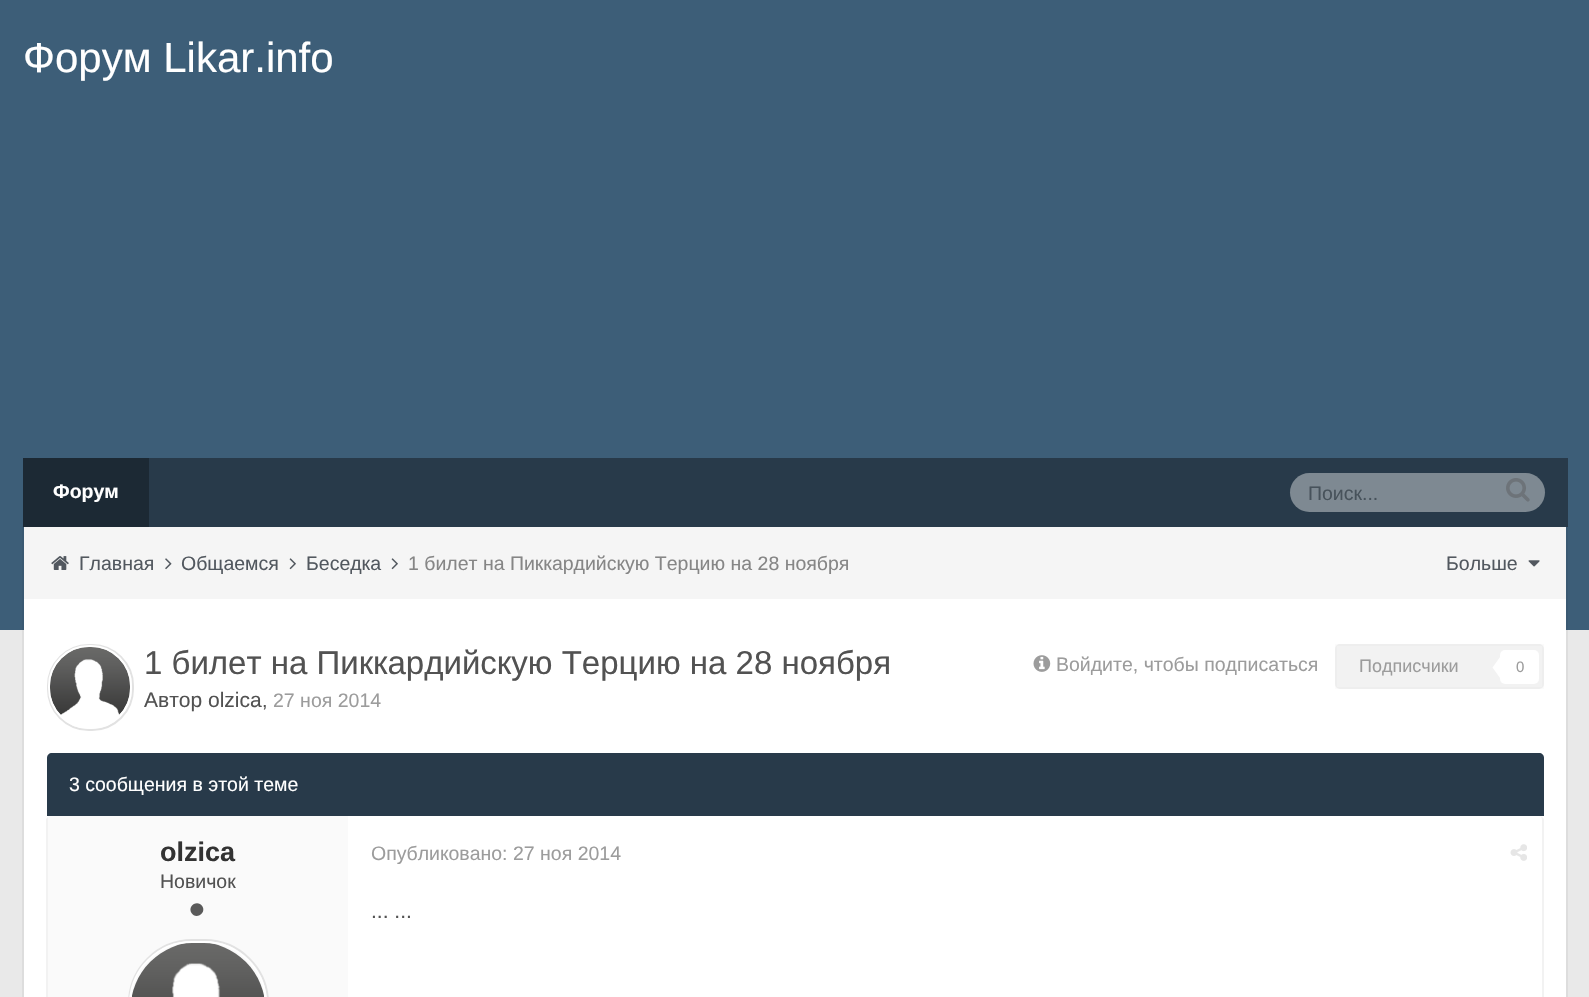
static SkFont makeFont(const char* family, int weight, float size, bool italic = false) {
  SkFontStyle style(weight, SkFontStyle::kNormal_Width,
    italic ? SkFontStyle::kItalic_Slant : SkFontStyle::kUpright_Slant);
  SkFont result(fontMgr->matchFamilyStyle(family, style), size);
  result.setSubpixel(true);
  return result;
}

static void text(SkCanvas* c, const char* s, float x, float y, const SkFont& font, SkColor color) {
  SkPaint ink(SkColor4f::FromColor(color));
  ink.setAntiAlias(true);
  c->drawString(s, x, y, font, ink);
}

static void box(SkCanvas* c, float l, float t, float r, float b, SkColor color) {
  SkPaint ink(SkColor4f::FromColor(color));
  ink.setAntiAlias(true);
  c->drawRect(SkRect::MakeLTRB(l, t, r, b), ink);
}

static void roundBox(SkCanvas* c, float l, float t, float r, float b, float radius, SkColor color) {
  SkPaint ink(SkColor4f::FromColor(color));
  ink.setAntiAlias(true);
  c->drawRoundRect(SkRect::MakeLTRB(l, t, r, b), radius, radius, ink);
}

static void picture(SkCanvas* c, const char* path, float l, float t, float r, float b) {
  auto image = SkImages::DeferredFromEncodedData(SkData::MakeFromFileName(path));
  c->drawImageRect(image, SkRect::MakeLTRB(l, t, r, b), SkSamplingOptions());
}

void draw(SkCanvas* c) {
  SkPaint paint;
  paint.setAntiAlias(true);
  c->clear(0xffe9e9e9);
  box(c, 0, 0, 1589, 630, 0xff3d5e78);
  SkFont face1 = makeFont("Liberation Sans", 400, 42);
  text(c, "Форум Likar.info", 23, 72, face1, 0xffffffff);
  box(c, 149, 458, 1568, 527, 0xff283a4a);
  box(c, 23, 458, 149, 527, 0xff1c2934);
  SkFont face2 = makeFont("Liberation Sans", 700, 19.5f);
  text(c, "Форум", 53, 498, face2, 0xffffffff);
  roundBox(c, 1290, 473, 1545, 512, 19.5f, 0xff7e8992);
  SkFont face3 = makeFont("Liberation Sans", 400, 19.5f);
  text(c, "Поиск...", 1308, 500, face3, 0xff47525b);
  picture(c, "img_01.png", 1506, 478, 1530, 502);
  paint.setColor(0x0d000000);
  c->drawPath(SkPathBuilder().moveTo(1568, 526).lineTo(1568, 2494).lineTo(1566, 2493).lineTo(1566, 526).close().detach(), paint);
  c->drawPath(SkPathBuilder().moveTo(22, 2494).lineTo(22, 526).lineTo(24, 526).lineTo(24, 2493).close().detach(), paint);
  box(c, 24, 527, 1566, 599, 0xfff5f5f5);
  picture(c, "img_02.png", 51, 556, 69, 570);
  text(c, "Главная", 79, 570, face3, 0xff52585f);
  picture(c, "img_03.png", 165, 558, 172, 570);
  text(c, "Общаемся", 181, 570, face3, 0xff52585f);
  picture(c, "img_04.png", 289, 558, 296, 570);
  text(c, "Беседка", 306, 570, face3, 0xff52585f);
  picture(c, "img_04.png", 391, 558, 398, 570);
  text(c, "1 билет на Пиккардийскую Терцию на 28 ноября", 408, 570, face3, 0xff868686);
  text(c, "Больше", 1446, 570, face3, 0xff52585f);
  picture(c, "img_05.png", 1528, 560, 1540, 567);
  box(c, 24, 599, 1566, 997, 0xffffffff);
  picture(c, "img_06.png", 50, 647, 130, 727);
  paint.setStyle(SkPaint::kStroke_Style);
  paint.setStrokeWidth(2);
  paint.setColor(0xffe2e2e2);
  c->drawRoundRect(SkRect::MakeLTRB(48, 645, 133, 730), 41, 41, paint);
  paint.setColor(0xffffffff);
  c->drawRoundRect(SkRect::MakeLTRB(49, 646, 131, 728), 40, 40, paint);
  SkFont face4 = makeFont("Liberation Sans", 400, 33);
  text(c, "1 билет на Пиккардийскую Терцию на 28 ноября", 144, 674, face4, 0xff525252);
  SkFont face5 = makeFont("Liberation Sans", 400, 21);
  text(c, "Автор olzica", 144, 707, face5, 0xff525252);
  text(c, ",", 262, 707, face3, 0xff525252);
  text(c, "27 ноя 2014", 273, 707, face3, 0xff9c9c9c);
  picture(c, "img_07.png", 1033, 655, 1051, 672);
  text(c, "Войдите, чтобы подписаться", 1056, 671, face3, 0xff9c9c9c);
  roundBox(c, 1335, 644, 1544, 689, 5, 0xfff2f2f2);
  paint.setColor(0x08808080);
  c->drawRect(SkRect::MakeLTRB(1336, 645, 1543, 688), paint);
  SkFont face6 = makeFont("Liberation Sans", 400, 18);
  text(c, "Подписчики", 1359, 672, face6, 0xff9c9c9c);
  roundBox(c, 1500, 650, 1539, 684, 5, 0xffffffff);
  paint.setStyle(SkPaint::kFill_Style);
  paint.setColor(0xffffffff);
  c->drawPath(SkPathBuilder().moveTo(1500, 657).lineTo(1500, 678).lineTo(1492.5f, 667.5f).close().detach(), paint);
  SkFont face7 = makeFont("Liberation Sans", 400, 15);
  text(c, "0", 1516, 672, face7, 0xff9c9c9c);
  paint.setColor(0xff283a4a);
  c->drawPath(SkPathBuilder().moveTo(52, 753).lineTo(1539, 753).cubicTo(1542, 753, 1544, 755, 1544, 758).lineTo(1544, 816).lineTo(47, 816).lineTo(47, 758).cubicTo(47, 755, 49, 753, 52, 753).close().detach(), paint);
  text(c, "3 сообщения в этой теме", 69, 791, face3, 0xffffffff);
  paint.setColor(0xfff2f2f2);
  c->drawPath(SkPathBuilder(SkPathFillType::kEvenOdd).moveTo(51, 816).lineTo(1539, 816).cubicTo(1541, 816, 1544, 818, 1544, 820).lineTo(1544, 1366).cubicTo(1544, 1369, 1541, 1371, 1539, 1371).lineTo(51, 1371).cubicTo(49, 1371, 46, 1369, 46, 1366).lineTo(46, 820).cubicTo(46, 818, 49, 816, 51, 816).close().moveTo(51, 816).lineTo(1539, 816).cubicTo(1541, 816, 1542, 818, 1542, 820).lineTo(1542, 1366).cubicTo(1542, 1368, 1541, 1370, 1539, 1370).lineTo(51, 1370).cubicTo(49, 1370, 48, 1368, 48, 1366).lineTo(48, 820).cubicTo(48, 818, 49, 816, 51, 816).close().detach(), paint);
  box(c, 48, 816, 348, 997, 0xfffafafa);
  SkFont face8 = makeFont("Liberation Sans", 700, 27);
  text(c, "olzica", 160, 861, face8, 0xff333333);
  text(c, "Новичок", 160, 888, face3, 0xff525252);
  paint.setColor(0xff5a5a5a);
  c->drawPath(SkPathBuilder().moveTo(202.5f, 906.5f).cubicTo(206.5f, 913.5f, 195.5f, 920, 191.5f, 913).cubicTo(187, 905.5f, 198, 899, 202.5f, 906.5f).close().detach(), paint);
  picture(c, "img_08.png", 132, 943, 264, 997);
  paint.setStyle(SkPaint::kStroke_Style);
  paint.setColor(0xffe2e2e2);
  c->drawRoundRect(SkRect::MakeLTRB(129, 940, 268, 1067), 68, 68, paint);
  paint.setColor(0xffffffff);
  c->drawRoundRect(SkRect::MakeLTRB(130, 942, 266, 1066), 67, 67, paint);
  text(c, "Опубликовано: 27 ноя 2014", 371, 860, face3, 0xff9c9c9c);
  picture(c, "img_09.png", 1510, 844, 1527, 861);
  text(c, "... ...", 371, 918, face5, 0xff525252);
}
